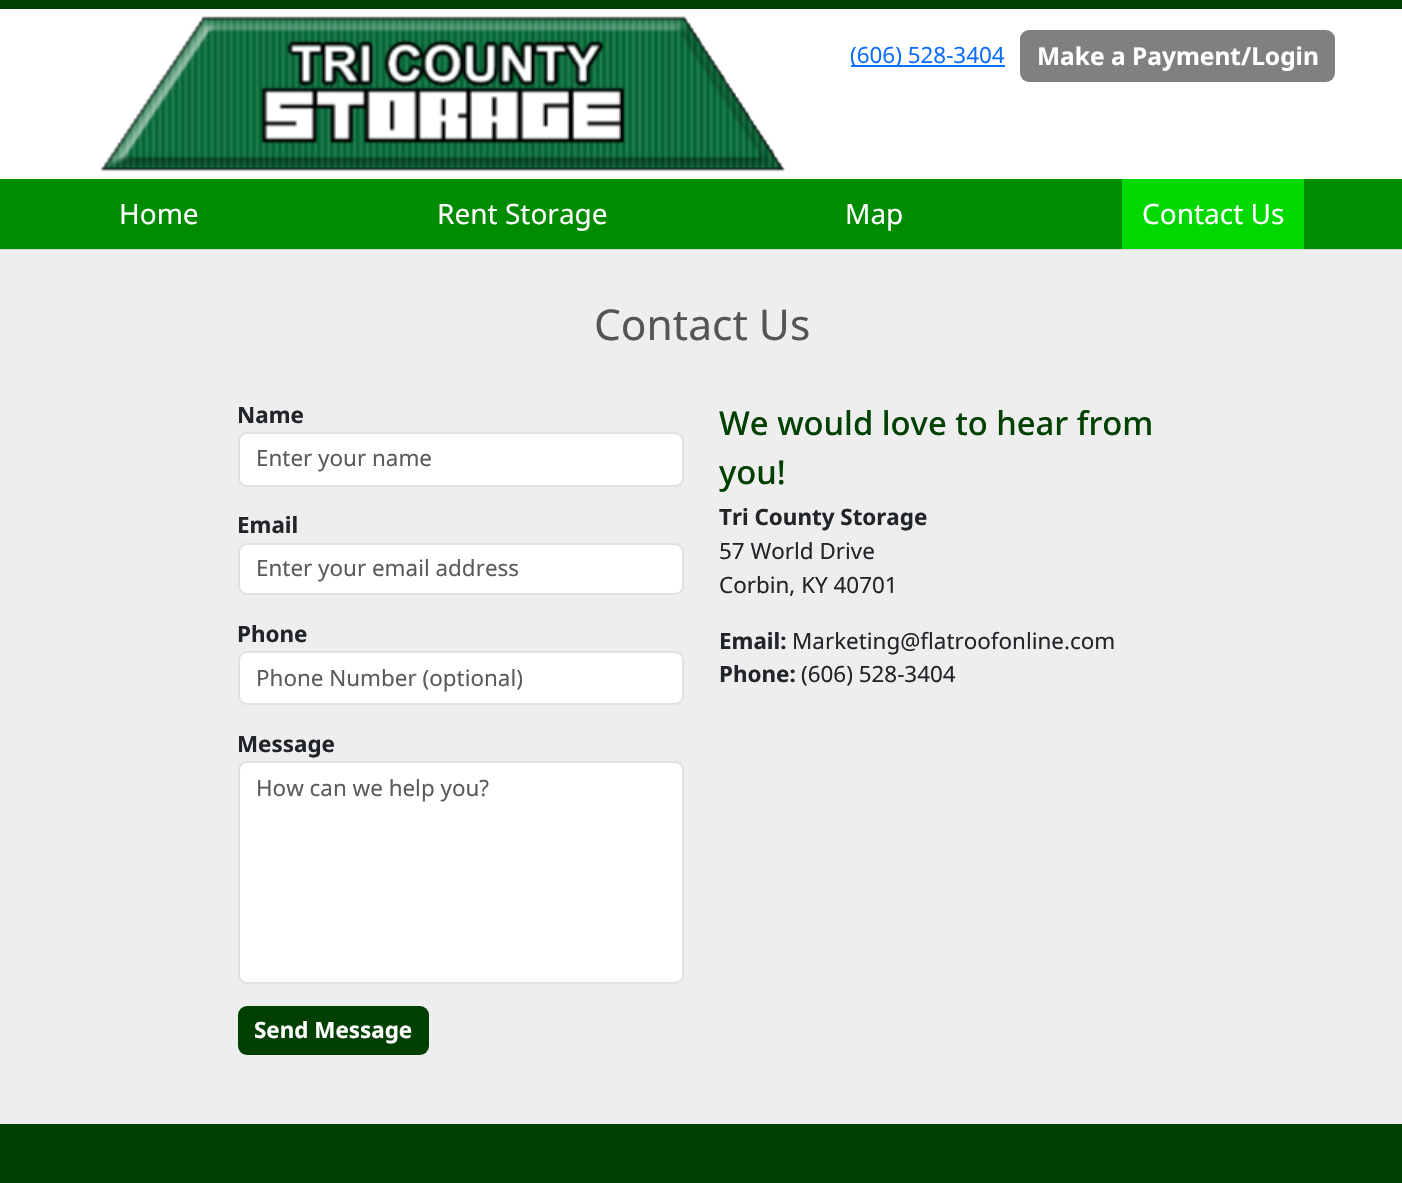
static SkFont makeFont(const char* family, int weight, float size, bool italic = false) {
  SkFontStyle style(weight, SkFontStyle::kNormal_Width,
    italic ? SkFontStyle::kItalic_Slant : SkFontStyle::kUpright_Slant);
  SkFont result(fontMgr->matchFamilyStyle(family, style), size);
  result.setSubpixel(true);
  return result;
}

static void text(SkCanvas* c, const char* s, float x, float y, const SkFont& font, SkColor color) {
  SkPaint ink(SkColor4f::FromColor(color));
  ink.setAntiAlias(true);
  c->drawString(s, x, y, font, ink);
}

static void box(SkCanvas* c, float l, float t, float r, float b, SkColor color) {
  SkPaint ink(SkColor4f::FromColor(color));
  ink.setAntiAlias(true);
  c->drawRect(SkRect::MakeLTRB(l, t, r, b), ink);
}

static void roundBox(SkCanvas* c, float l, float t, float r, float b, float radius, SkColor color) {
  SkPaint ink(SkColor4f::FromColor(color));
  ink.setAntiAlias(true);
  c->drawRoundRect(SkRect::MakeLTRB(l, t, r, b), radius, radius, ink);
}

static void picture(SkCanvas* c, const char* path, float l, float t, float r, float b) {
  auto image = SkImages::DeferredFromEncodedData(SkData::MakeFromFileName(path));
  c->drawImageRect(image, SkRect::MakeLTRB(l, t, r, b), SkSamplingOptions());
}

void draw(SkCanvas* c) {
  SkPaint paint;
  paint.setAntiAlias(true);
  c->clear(0xffeeeeee);
  paint.setColor(0xffd6d6d6);
  c->drawPath(SkPathBuilder().moveTo(0, 248).lineTo(0, 250).lineTo(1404, 250).lineTo(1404, 2).lineTo(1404, 248).close().detach(), paint);
  box(c, 0, 9, 1402, 179, 0xffffffff);
  box(c, 0, 0, 1402, 9, 0xff004000);
  picture(c, "img_01.png", 100, 16, 785, 172);
  box(c, 851, 65, 1005, 67, 0xff0d6efd);
  SkFont face1 = makeFont("Noto Sans", 400, 22.4f);
  text(c, "(606) 528-3404", 850, 63, face1, 0xff0d6efd);
  roundBox(c, 1020, 30, 1335, 82, 9, 0xff808080);
  SkFont face2 = makeFont("Noto Sans", 700, 24.5f);
  text(c, "Make a Payment/Login", 1037, 65, face2, 0xffffffff);
  box(c, 0, 179, 1402, 249, 0xff008c00);
  SkFont face3 = makeFont("Noto Sans", 400, 28);
  text(c, "Home", 119, 224, face3, 0xffffffff);
  text(c, "Rent Storage", 437, 224, face3, 0xffffffff);
  text(c, "Map", 845, 224, face3, 0xffffffff);
  box(c, 1122, 179, 1304, 249, 0xff00d900);
  text(c, "Contact Us", 1142, 224, face3, 0xffffffff);
  SkFont face4 = makeFont("Noto Sans", 400, 42.5f);
  text(c, "Contact Us", 594, 340, face4, 0xff555555);
  SkFont face5 = makeFont("Noto Sans", 700, 22.4f);
  text(c, "Name", 237, 423, face5, 0xff212529);
  paint.setColor(0xffffffff);
  c->drawRoundRect(SkRect::MakeLTRB(239, 433, 683, 486), 8, 8, paint);
  paint.setStyle(SkPaint::kStroke_Style);
  paint.setStrokeWidth(2);
  paint.setColor(0xffdee2e6);
  c->drawRoundRect(SkRect::MakeLTRB(239, 433, 683, 486), 8, 8, paint);
  text(c, "Enter your name", 256, 466, face1, 0xff595c5f);
  text(c, "Email", 237, 533, face5, 0xff212529);
  paint.setStyle(SkPaint::kFill_Style);
  paint.setColor(0xffffffff);
  c->drawRoundRect(SkRect::MakeLTRB(239, 544, 683, 594), 8, 8, paint);
  paint.setStyle(SkPaint::kStroke_Style);
  paint.setColor(0xffdee2e6);
  c->drawRoundRect(SkRect::MakeLTRB(239, 544, 683, 594), 8, 8, paint);
  text(c, "Enter your email address", 256, 576, face1, 0xff595c5f);
  text(c, "Phone", 237, 642, face5, 0xff212529);
  paint.setStyle(SkPaint::kFill_Style);
  paint.setColor(0xffffffff);
  c->drawRoundRect(SkRect::MakeLTRB(239, 652, 683, 704), 8, 8, paint);
  paint.setStyle(SkPaint::kStroke_Style);
  paint.setColor(0xffdee2e6);
  c->drawRoundRect(SkRect::MakeLTRB(239, 652, 683, 704), 8, 8, paint);
  text(c, "Phone Number (optional)", 256, 686, face1, 0xff595c5f);
  text(c, "Message", 237, 752, face5, 0xff212529);
  paint.setStyle(SkPaint::kFill_Style);
  paint.setColor(0xffffffff);
  c->drawRoundRect(SkRect::MakeLTRB(239, 762, 683, 983), 8, 8, paint);
  paint.setStyle(SkPaint::kStroke_Style);
  paint.setColor(0xffdee2e6);
  c->drawRoundRect(SkRect::MakeLTRB(239, 762, 683, 983), 8, 8, paint);
  text(c, "How can we help you?", 256, 796, face1, 0xff595c5f);
  roundBox(c, 238, 1006, 429, 1055, 9, 0xff004000);
  text(c, "Send Message", 254, 1038, face5, 0xffffffff);
  SkFont face6 = makeFont("Noto Sans", 500, 32.75f);
  text(c, "We would love to hear from", 719, 435, face6, 0xff004000);
  text(c, "you!", 719, 484, face6, 0xff004000);
  text(c, "Tri County Storage", 719, 525, face5, 0xff212529);
  text(c, "57 World Drive", 719, 559, face1, 0xff212529);
  text(c, "Corbin, KY 40701", 719, 593, face1, 0xff212529);
  text(c, "Email:", 719, 649, face5, 0xff212529);
  text(c, "Marketing@flatroofonline.com", 792, 649, face1, 0xff212529);
  text(c, "Phone:", 719, 682, face5, 0xff212529);
  text(c, "(606) 528-3404", 801, 682, face1, 0xff212529);
  box(c, 0, 1124, 1402, 1183, 0xff004000);
}
